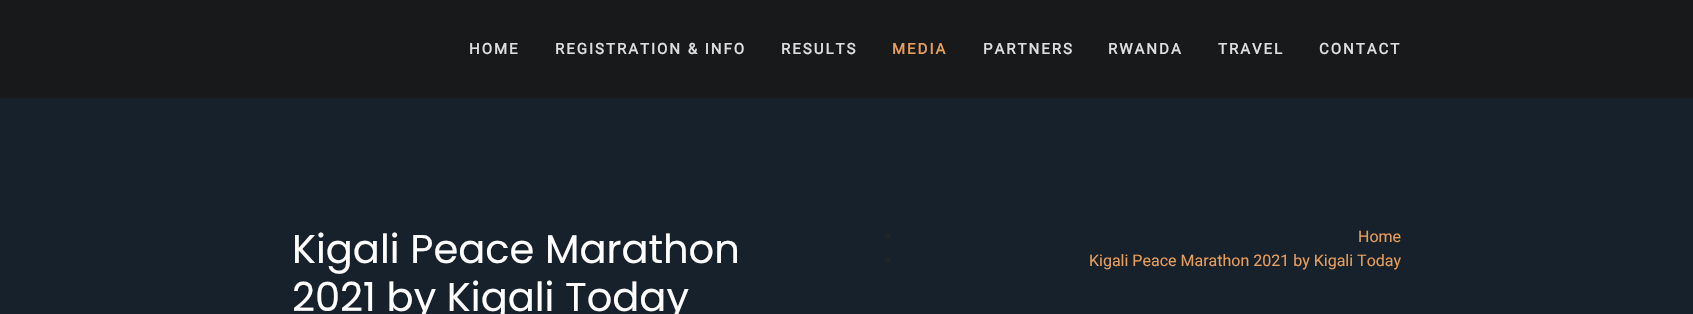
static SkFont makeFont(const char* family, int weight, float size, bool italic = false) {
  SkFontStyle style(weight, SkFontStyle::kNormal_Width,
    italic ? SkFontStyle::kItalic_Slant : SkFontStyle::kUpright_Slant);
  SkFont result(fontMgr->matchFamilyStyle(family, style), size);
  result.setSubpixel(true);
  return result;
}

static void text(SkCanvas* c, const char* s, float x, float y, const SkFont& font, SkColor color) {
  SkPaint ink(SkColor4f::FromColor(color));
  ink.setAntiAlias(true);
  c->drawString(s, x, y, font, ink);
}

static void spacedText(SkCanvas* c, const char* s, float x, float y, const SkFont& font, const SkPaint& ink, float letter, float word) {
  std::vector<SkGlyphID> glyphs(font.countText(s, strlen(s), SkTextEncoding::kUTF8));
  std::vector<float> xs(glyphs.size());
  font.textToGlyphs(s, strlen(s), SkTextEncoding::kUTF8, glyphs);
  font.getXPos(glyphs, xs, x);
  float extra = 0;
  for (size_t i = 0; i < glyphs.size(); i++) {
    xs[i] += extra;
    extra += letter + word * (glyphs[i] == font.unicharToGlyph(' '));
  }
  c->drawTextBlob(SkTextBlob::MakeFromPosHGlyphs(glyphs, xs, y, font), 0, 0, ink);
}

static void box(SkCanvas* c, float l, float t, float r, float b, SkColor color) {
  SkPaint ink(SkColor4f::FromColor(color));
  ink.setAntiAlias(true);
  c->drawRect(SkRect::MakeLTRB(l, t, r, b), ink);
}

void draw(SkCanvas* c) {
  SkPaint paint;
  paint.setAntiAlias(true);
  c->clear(0xff17212c);
  box(c, 0, 0, 1693, 98, 0xff18191b);
  SkFont face1 = makeFont("Roboto", 700, 15);
  paint.setColor(0xffdddddd);
  spacedText(c, "HOME", 469, 54, face1, paint, 2, 0);
  spacedText(c, "REGISTRATION & INFO", 555, 54, face1, paint, 2, 0);
  spacedText(c, "RESULTS", 781, 54, face1, paint, 2, 0);
  paint.setColor(0xffe89e5b);
  spacedText(c, "MEDIA", 892, 54, face1, paint, 2, 0);
  paint.setColor(0xffdddddd);
  spacedText(c, "PARTNERS", 983, 54, face1, paint, 2, 0);
  spacedText(c, "RWANDA", 1108, 54, face1, paint, 2, 0);
  spacedText(c, "TRAVEL", 1218, 54, face1, paint, 2, 0);
  spacedText(c, "CONTACT", 1319, 54, face1, paint, 2, 0);
  SkFont face2 = makeFont("Poppins", 400, 40);
  text(c, "Kigali Peace Marathon", 292, 263, face2, 0xffffffff);
  text(c, "2021 by Kigali Today", 292, 311, face2, 0xffffffff);
  paint.setColor(0xff212529);
  c->drawCircle(887.5f, 236.5f, 2.5f, paint);
  SkFont face3 = makeFont("Roboto", 400, 16);
  text(c, "Home", 1358, 242, face3, 0xffe89e5b);
  c->drawCircle(887.5f, 260.5f, 2.5f, paint);
  text(c, "Kigali Peace Marathon 2021 by Kigali Today", 1089, 266, face3, 0xffe89e5b);
}
